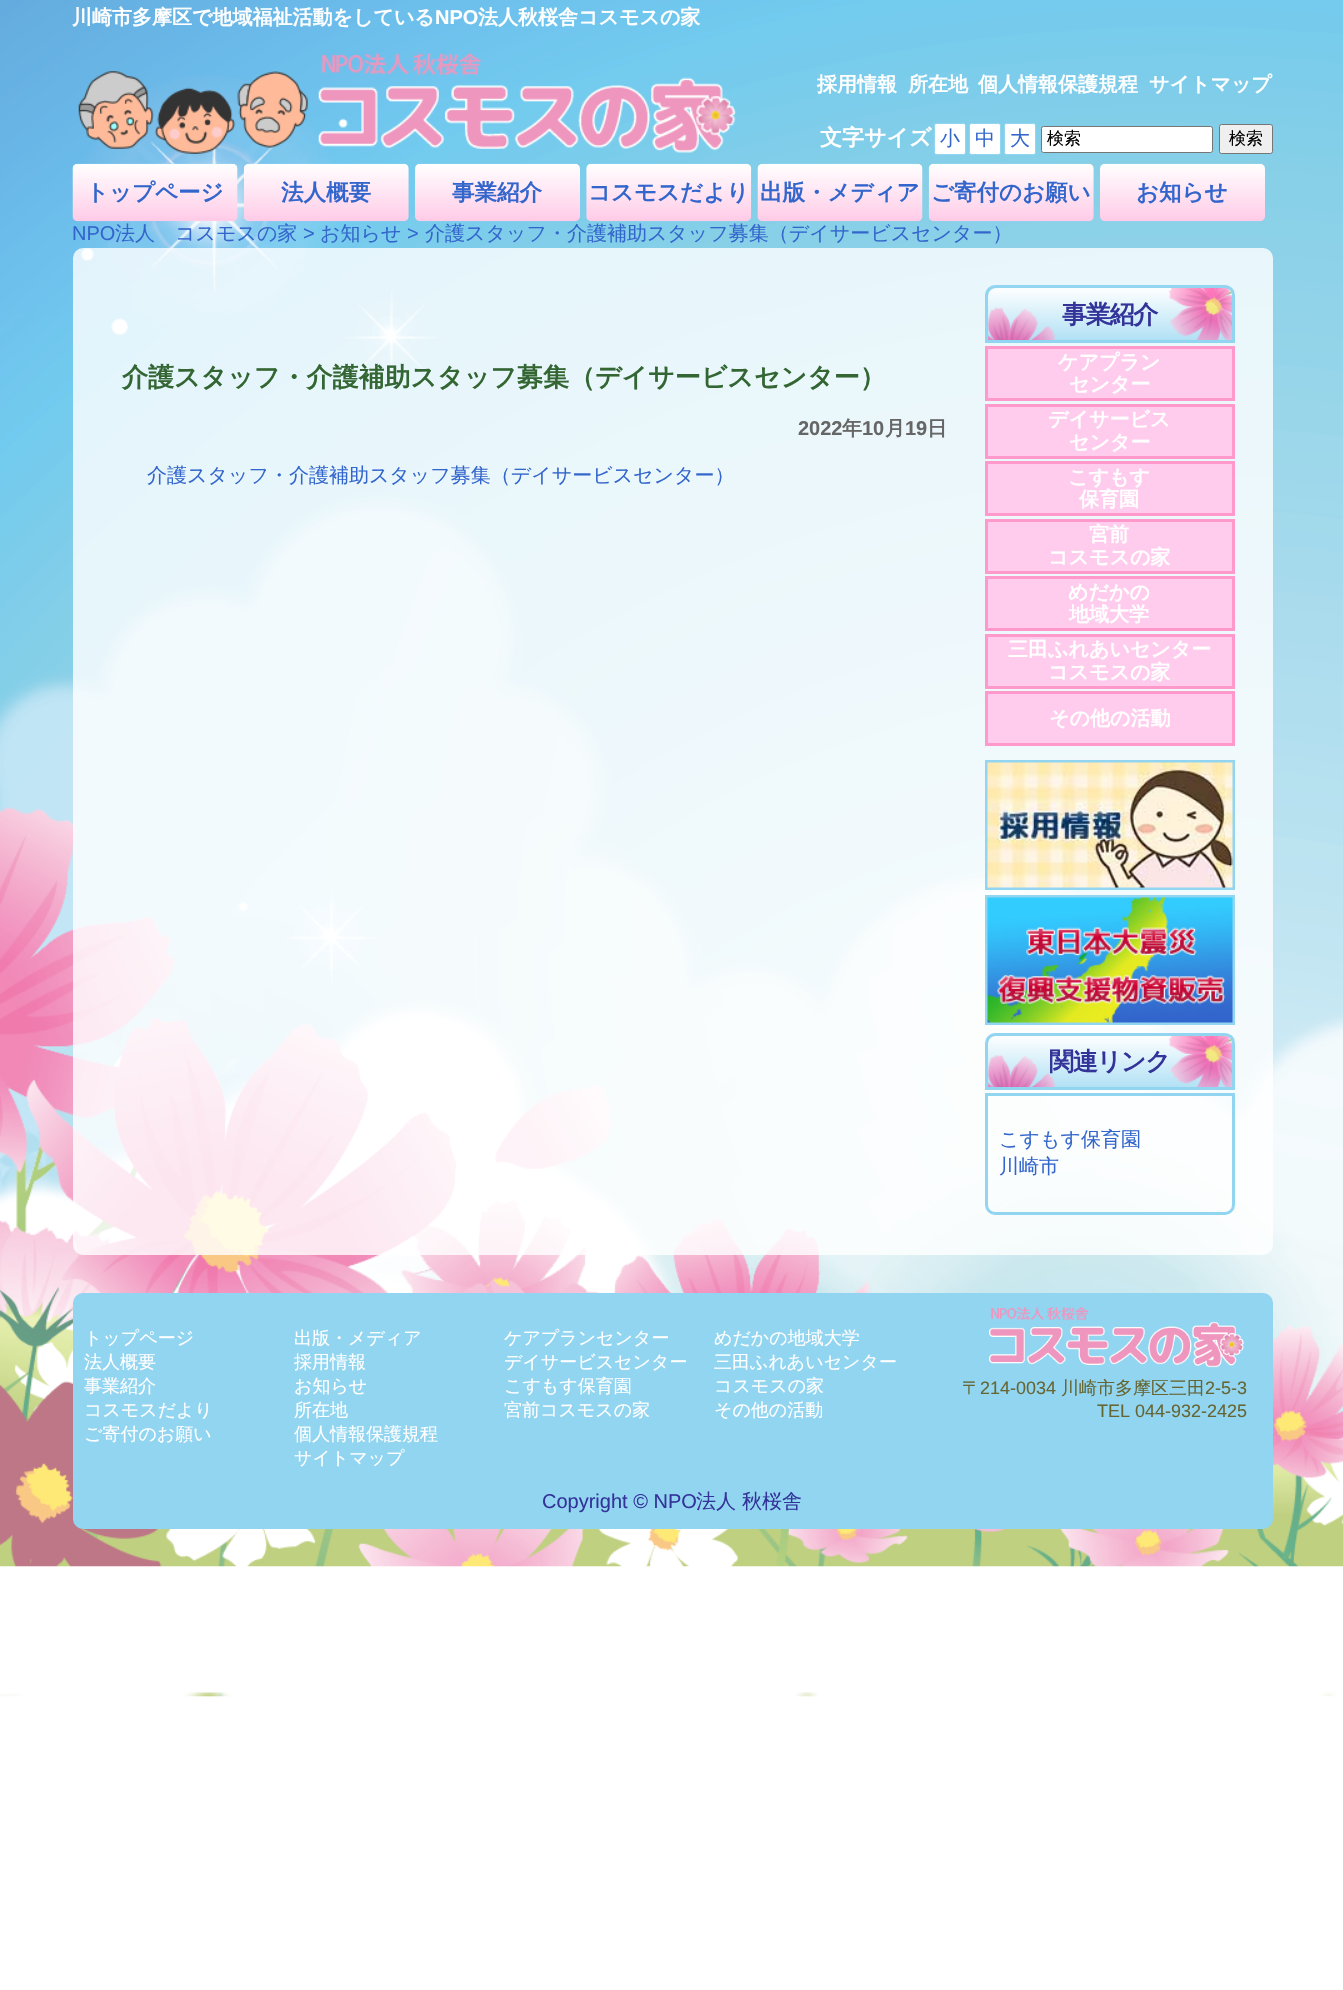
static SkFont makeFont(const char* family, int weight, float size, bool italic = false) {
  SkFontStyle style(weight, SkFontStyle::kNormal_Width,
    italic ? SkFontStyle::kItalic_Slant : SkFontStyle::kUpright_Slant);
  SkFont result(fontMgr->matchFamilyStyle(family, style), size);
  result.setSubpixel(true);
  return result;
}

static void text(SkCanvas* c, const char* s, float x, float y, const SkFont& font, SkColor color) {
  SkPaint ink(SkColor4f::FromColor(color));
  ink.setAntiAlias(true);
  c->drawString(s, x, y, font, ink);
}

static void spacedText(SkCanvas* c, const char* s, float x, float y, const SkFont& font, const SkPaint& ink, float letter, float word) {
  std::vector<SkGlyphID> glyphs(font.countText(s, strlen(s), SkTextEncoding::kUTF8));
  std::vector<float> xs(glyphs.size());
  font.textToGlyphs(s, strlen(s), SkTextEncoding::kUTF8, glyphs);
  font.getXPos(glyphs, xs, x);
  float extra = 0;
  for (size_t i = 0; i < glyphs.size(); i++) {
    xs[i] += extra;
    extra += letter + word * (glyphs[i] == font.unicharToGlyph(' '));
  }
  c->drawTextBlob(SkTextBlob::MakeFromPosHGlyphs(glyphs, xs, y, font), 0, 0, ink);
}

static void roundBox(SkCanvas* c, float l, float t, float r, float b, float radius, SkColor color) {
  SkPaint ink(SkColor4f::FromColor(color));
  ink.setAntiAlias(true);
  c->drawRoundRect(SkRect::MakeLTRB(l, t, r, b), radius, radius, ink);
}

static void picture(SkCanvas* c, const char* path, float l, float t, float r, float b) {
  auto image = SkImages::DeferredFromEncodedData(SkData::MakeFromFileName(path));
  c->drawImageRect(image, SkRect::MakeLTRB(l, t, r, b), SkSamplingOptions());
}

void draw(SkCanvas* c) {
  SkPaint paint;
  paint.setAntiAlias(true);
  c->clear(0xffffffff);
  picture(c, "img_01.png", 0, 0, 1343, 1697);
  SkFont face1 = makeFont("WenQuanYi Zen Hei", 700, 20);
  text(c, "川崎市多摩区で地域福祉活動をしている", 72, 24, face1, 0xffffffff);
  SkFont face2 = makeFont("Liberation Sans", 700, 20);
  text(c, "NPO", 435, 24, face2, 0xffffffff);
  text(c, "法人秋桜舎コスモスの家", 478, 24, face1, 0xffffffff);
  picture(c, "img_02.png", 78, 71, 308, 154);
  picture(c, "img_03.png", 318, 53, 736, 153);
  text(c, "採用情報", 817, 91, face1, 0xffffffff);
  text(c, "所在地", 908, 91, face1, 0xffffffff);
  text(c, "個人情報保護規程", 978, 91, face1, 0xffffffff);
  text(c, "サイトマップ", 1149, 91, face1, 0xffffffff);
  SkFont face3 = makeFont("WenQuanYi Zen Hei", 700, 22);
  text(c, "文字サイズ", 820, 145, face3, 0xffffffff);
  paint.setColor(0xffffffff);
  c->drawRoundRect(SkRect::MakeLTRB(934.5f, 123.5f, 965.5f, 154.5f), 2, 2, paint);
  paint.setStyle(SkPaint::kStroke_Style);
  paint.setStrokeWidth(1);
  paint.setColor(0xff91d5f1);
  c->drawRoundRect(SkRect::MakeLTRB(934.5f, 123.5f, 965.5f, 154.5f), 2, 2, paint);
  SkFont face4 = makeFont("WenQuanYi Zen Hei", 500, 20);
  text(c, "小", 940, 145, face4, 0xff3366cc);
  paint.setStyle(SkPaint::kFill_Style);
  paint.setColor(0xffffffff);
  c->drawRoundRect(SkRect::MakeLTRB(969.5f, 123.5f, 1000.5f, 154.5f), 2, 2, paint);
  paint.setStyle(SkPaint::kStroke_Style);
  paint.setColor(0xff91d5f1);
  c->drawRoundRect(SkRect::MakeLTRB(969.5f, 123.5f, 1000.5f, 154.5f), 2, 2, paint);
  text(c, "中", 975, 145, face4, 0xff3366cc);
  paint.setStyle(SkPaint::kFill_Style);
  paint.setColor(0xffffffff);
  c->drawRoundRect(SkRect::MakeLTRB(1004.5f, 123.5f, 1035.5f, 154.5f), 2, 2, paint);
  paint.setStyle(SkPaint::kStroke_Style);
  paint.setColor(0xff91d5f1);
  c->drawRoundRect(SkRect::MakeLTRB(1004.5f, 123.5f, 1035.5f, 154.5f), 2, 2, paint);
  text(c, "大", 1010, 145, face4, 0xff3366cc);
  paint.setStyle(SkPaint::kFill_Style);
  paint.setColor(0xffffffff);
  c->drawRoundRect(SkRect::MakeLTRB(1041.5f, 126.5f, 1212.5f, 152.5f), 2, 2, paint);
  paint.setStyle(SkPaint::kStroke_Style);
  paint.setColor(0xff767676);
  c->drawRoundRect(SkRect::MakeLTRB(1041.5f, 126.5f, 1212.5f, 152.5f), 2, 2, paint);
  SkFont face5 = makeFont("WenQuanYi Zen Hei", 500, 17);
  text(c, "検索", 1047, 144, face5, 0xff000000);
  paint.setStyle(SkPaint::kFill_Style);
  paint.setColor(0xffefefef);
  c->drawRoundRect(SkRect::MakeLTRB(1219.5f, 124.5f, 1272.5f, 153.5f), 2, 2, paint);
  paint.setStyle(SkPaint::kStroke_Style);
  paint.setColor(0xff767676);
  c->drawRoundRect(SkRect::MakeLTRB(1219.5f, 124.5f, 1272.5f, 153.5f), 2, 2, paint);
  text(c, "検索", 1229, 144, face5, 0xff000000);
  picture(c, "img_04.png", 72, 163, 238, 222);
  SkFont face6 = makeFont("WenQuanYi Zen Hei", 700, 22.5f);
  text(c, "トップページ", 86, 200, face6, 0xff3366cc);
  picture(c, "img_05.png", 243, 163, 409, 222);
  text(c, "法人概要", 281, 200, face6, 0xff3366cc);
  picture(c, "img_06.png", 415, 163, 580, 222);
  text(c, "事業紹介", 452, 200, face6, 0xff3366cc);
  picture(c, "img_07.png", 586, 163, 752, 222);
  text(c, "コスモスだより", 588, 200, face6, 0xff3366cc);
  picture(c, "img_08.png", 757, 163, 923, 222);
  text(c, "出版・メディア", 760, 200, face6, 0xff3366cc);
  picture(c, "img_09.png", 928, 163, 1094, 222);
  text(c, "ご寄付のお願い", 931, 200, face6, 0xff3366cc);
  picture(c, "img_10.png", 1100, 163, 1265, 222);
  text(c, "お知らせ", 1136, 200, face6, 0xff3366cc);
  SkFont face7 = makeFont("Liberation Sans", 400, 20);
  text(c, "NPO", 72, 240, face7, 0xff3366cc);
  text(c, "法人　コスモスの家", 115, 240, face4, 0xff3366cc);
  text(c, ">", 303, 240, face7, 0xff3366cc);
  text(c, "お知らせ", 320, 240, face4, 0xff3366cc);
  text(c, ">", 407, 240, face7, 0xff3366cc);
  text(c, "介護スタッフ・介護補助スタッフ募集（デイサービスセンター）", 425, 240, face4, 0xff3366cc);
  roundBox(c, 73, 248, 1273, 1255, 10, 0xccffffff);
  SkFont face8 = makeFont("WenQuanYi Zen Hei", 700, 26);
  text(c, "介護スタッフ・介護補助スタッフ募集（デイサービスセンター）", 122, 386, face8, 0xff336633);
  text(c, "2022", 798, 435, face2, 0xff666666);
  text(c, "年", 842, 435, face1, 0xff666666);
  text(c, "10", 862, 435, face2, 0xff666666);
  text(c, "月", 885, 435, face1, 0xff666666);
  text(c, "19", 905, 435, face2, 0xff666666);
  text(c, "日", 927, 435, face1, 0xff666666);
  text(c, "介護スタッフ・介護補助スタッフ募集（デイサービスセンター）", 147, 482, face4, 0xff3366cc);
  picture(c, "img_11.png", 988, 287, 1235, 340);
  paint.setStrokeWidth(3);
  paint.setColor(0xff91d5f1);
  c->drawPath(SkPathBuilder().moveTo(995, 286.5f).lineTo(1225, 286.5f).cubicTo(1229.5f, 286.5f, 1233.5f, 290.5f, 1233.5f, 295).lineTo(1233.5f, 341.5f).lineTo(986.5f, 341.5f).lineTo(986.5f, 295).cubicTo(986.5f, 290.5f, 990.5f, 286.5f, 995, 286.5f).close().detach(), paint);
  SkFont face9 = makeFont("WenQuanYi Zen Hei", 700, 25);
  paint.setStyle(SkPaint::kFill_Style);
  paint.setColor(0xff333399);
  spacedText(c, "事業紹介", 1062, 323, face9, paint, -1.25f, 0);
  paint.setColor(0xffffccee);
  c->drawRect(SkRect::MakeLTRB(986.5f, 347.5f, 1233.5f, 399.5f), paint);
  paint.setStyle(SkPaint::kStroke_Style);
  paint.setColor(0xffff99cc);
  c->drawRect(SkRect::MakeLTRB(986.5f, 347.5f, 1233.5f, 399.5f), paint);
  text(c, "ケアプラン", 1058, 369, face1, 0xffffffff);
  text(c, "センター", 1069, 391, face1, 0xffffffff);
  paint.setStyle(SkPaint::kFill_Style);
  paint.setColor(0xffffccee);
  c->drawRect(SkRect::MakeLTRB(986.5f, 405.5f, 1233.5f, 457.5f), paint);
  paint.setStyle(SkPaint::kStroke_Style);
  paint.setColor(0xffff99cc);
  c->drawRect(SkRect::MakeLTRB(986.5f, 405.5f, 1233.5f, 457.5f), paint);
  text(c, "デイサービス", 1048, 426, face1, 0xffffffff);
  text(c, "センター", 1069, 449, face1, 0xffffffff);
  paint.setStyle(SkPaint::kFill_Style);
  paint.setColor(0xffffccee);
  c->drawRect(SkRect::MakeLTRB(986.5f, 462.5f, 1233.5f, 514.5f), paint);
  paint.setStyle(SkPaint::kStroke_Style);
  paint.setColor(0xffff99cc);
  c->drawRect(SkRect::MakeLTRB(986.5f, 462.5f, 1233.5f, 514.5f), paint);
  text(c, "こすもす", 1068, 484, face1, 0xffffffff);
  text(c, "保育園", 1079, 506, face1, 0xffffffff);
  paint.setStyle(SkPaint::kFill_Style);
  paint.setColor(0xffffccee);
  c->drawRect(SkRect::MakeLTRB(986.5f, 520.5f, 1233.5f, 572.5f), paint);
  paint.setStyle(SkPaint::kStroke_Style);
  paint.setColor(0xffff99cc);
  c->drawRect(SkRect::MakeLTRB(986.5f, 520.5f, 1233.5f, 572.5f), paint);
  text(c, "宮前", 1089, 541, face1, 0xffffffff);
  text(c, "コスモスの家", 1048, 564, face1, 0xffffffff);
  paint.setStyle(SkPaint::kFill_Style);
  paint.setColor(0xffffccee);
  c->drawRect(SkRect::MakeLTRB(986.5f, 577.5f, 1233.5f, 629.5f), paint);
  paint.setStyle(SkPaint::kStroke_Style);
  paint.setColor(0xffff99cc);
  c->drawRect(SkRect::MakeLTRB(986.5f, 577.5f, 1233.5f, 629.5f), paint);
  text(c, "めだかの", 1068, 599, face1, 0xffffffff);
  text(c, "地域大学", 1069, 621, face1, 0xffffffff);
  paint.setStyle(SkPaint::kFill_Style);
  paint.setColor(0xffffccee);
  c->drawRect(SkRect::MakeLTRB(986.5f, 635.5f, 1233.5f, 687.5f), paint);
  paint.setStyle(SkPaint::kStroke_Style);
  paint.setColor(0xffff99cc);
  c->drawRect(SkRect::MakeLTRB(986.5f, 635.5f, 1233.5f, 687.5f), paint);
  text(c, "三田ふれあいセンター", 1008, 656, face1, 0xffffffff);
  text(c, "コスモスの家", 1048, 679, face1, 0xffffffff);
  paint.setStyle(SkPaint::kFill_Style);
  paint.setColor(0xffffccee);
  c->drawRect(SkRect::MakeLTRB(986.5f, 692.5f, 1233.5f, 744.5f), paint);
  paint.setStyle(SkPaint::kStroke_Style);
  paint.setColor(0xffff99cc);
  c->drawRect(SkRect::MakeLTRB(986.5f, 692.5f, 1233.5f, 744.5f), paint);
  text(c, "その他の活動", 1049, 725, face1, 0xffffffff);
  paint.setColor(0xff91d5f1);
  c->drawRect(SkRect::MakeLTRB(986.5f, 761.5f, 1233.5f, 888.5f), paint);
  picture(c, "img_12.png", 987, 762, 1233, 888);
  c->drawRect(SkRect::MakeLTRB(986.5f, 896.5f, 1233.5f, 1023.5f), paint);
  picture(c, "img_13.png", 987, 897, 1233, 1023);
  picture(c, "img_14.png", 988, 1035, 1235, 1087);
  c->drawPath(SkPathBuilder().moveTo(995, 1034.5f).lineTo(1225, 1034.5f).cubicTo(1229.5f, 1034.5f, 1233.5f, 1038.5f, 1233.5f, 1043).lineTo(1233.5f, 1088.5f).lineTo(986.5f, 1088.5f).lineTo(986.5f, 1043).cubicTo(986.5f, 1038.5f, 990.5f, 1034.5f, 995, 1034.5f).close().detach(), paint);
  paint.setStyle(SkPaint::kFill_Style);
  paint.setColor(0xff333399);
  spacedText(c, "関連リンク", 1049, 1070, face9, paint, -1.25f, 0);
  paint.setStyle(SkPaint::kStroke_Style);
  paint.setColor(0xff91d5f1);
  c->drawPath(SkPathBuilder().moveTo(986.5f, 1094.5f).lineTo(1233.5f, 1094.5f).lineTo(1233.5f, 1205).cubicTo(1233.5f, 1209.5f, 1229.5f, 1213.5f, 1225, 1213.5f).lineTo(995, 1213.5f).cubicTo(990.5f, 1213.5f, 986.5f, 1209.5f, 986.5f, 1205).close().detach(), paint);
  text(c, "こすもす保育園", 999, 1146, face4, 0xff3366cc);
  text(c, "川崎市", 999, 1173, face4, 0xff3366cc);
  roundBox(c, 73, 1293, 1273, 1529, 10, 0xff91d5f1);
  SkFont face10 = makeFont("WenQuanYi Zen Hei", 500, 18);
  text(c, "トップページ", 84, 1344, face10, 0xffffffff);
  text(c, "法人概要", 84, 1368, face10, 0xffffffff);
  text(c, "事業紹介", 84, 1392, face10, 0xffffffff);
  text(c, "コスモスだより", 84, 1416, face10, 0xffffffff);
  text(c, "ご寄付のお願い", 84, 1440, face10, 0xffffffff);
  text(c, "出版・メディア", 294, 1344, face10, 0xffffffff);
  text(c, "採用情報", 294, 1368, face10, 0xffffffff);
  text(c, "お知らせ", 294, 1392, face10, 0xffffffff);
  text(c, "所在地", 294, 1416, face10, 0xffffffff);
  text(c, "個人情報保護規程", 294, 1440, face10, 0xffffffff);
  text(c, "サイトマップ", 294, 1464, face10, 0xffffffff);
  text(c, "ケアプランセンター", 504, 1344, face10, 0xffffffff);
  text(c, "デイサービスセンター", 504, 1368, face10, 0xffffffff);
  text(c, "こすもす保育園", 504, 1392, face10, 0xffffffff);
  text(c, "宮前コスモスの家", 504, 1416, face10, 0xffffffff);
  text(c, "めだかの地域大学", 714, 1344, face10, 0xffffffff);
  text(c, "三田ふれあいセンター", 714, 1368, face10, 0xffffffff);
  text(c, "コスモスの家", 714, 1392, face10, 0xffffffff);
  text(c, "その他の活動", 714, 1416, face10, 0xffffffff);
  picture(c, "img_15.png", 989, 1307, 1244, 1368);
  text(c, "〒", 962, 1394, face10, 0xff666633);
  SkFont face11 = makeFont("Liberation Sans", 400, 18);
  text(c, "214-0034", 980, 1394, face11, 0xff666633);
  text(c, "川崎市多摩区三田", 1061, 1394, face10, 0xff666633);
  text(c, "2-5-3", 1205, 1394, face11, 0xff666633);
  text(c, "TEL 044-932-2425", 1097, 1417, face11, 0xff666633);
  text(c, "Copyright © NPO", 542, 1508, face7, 0xff333399);
  text(c, "法人", 696, 1508, face4, 0xff333399);
  text(c, "秋桜舎", 742, 1508, face4, 0xff333399);
}
